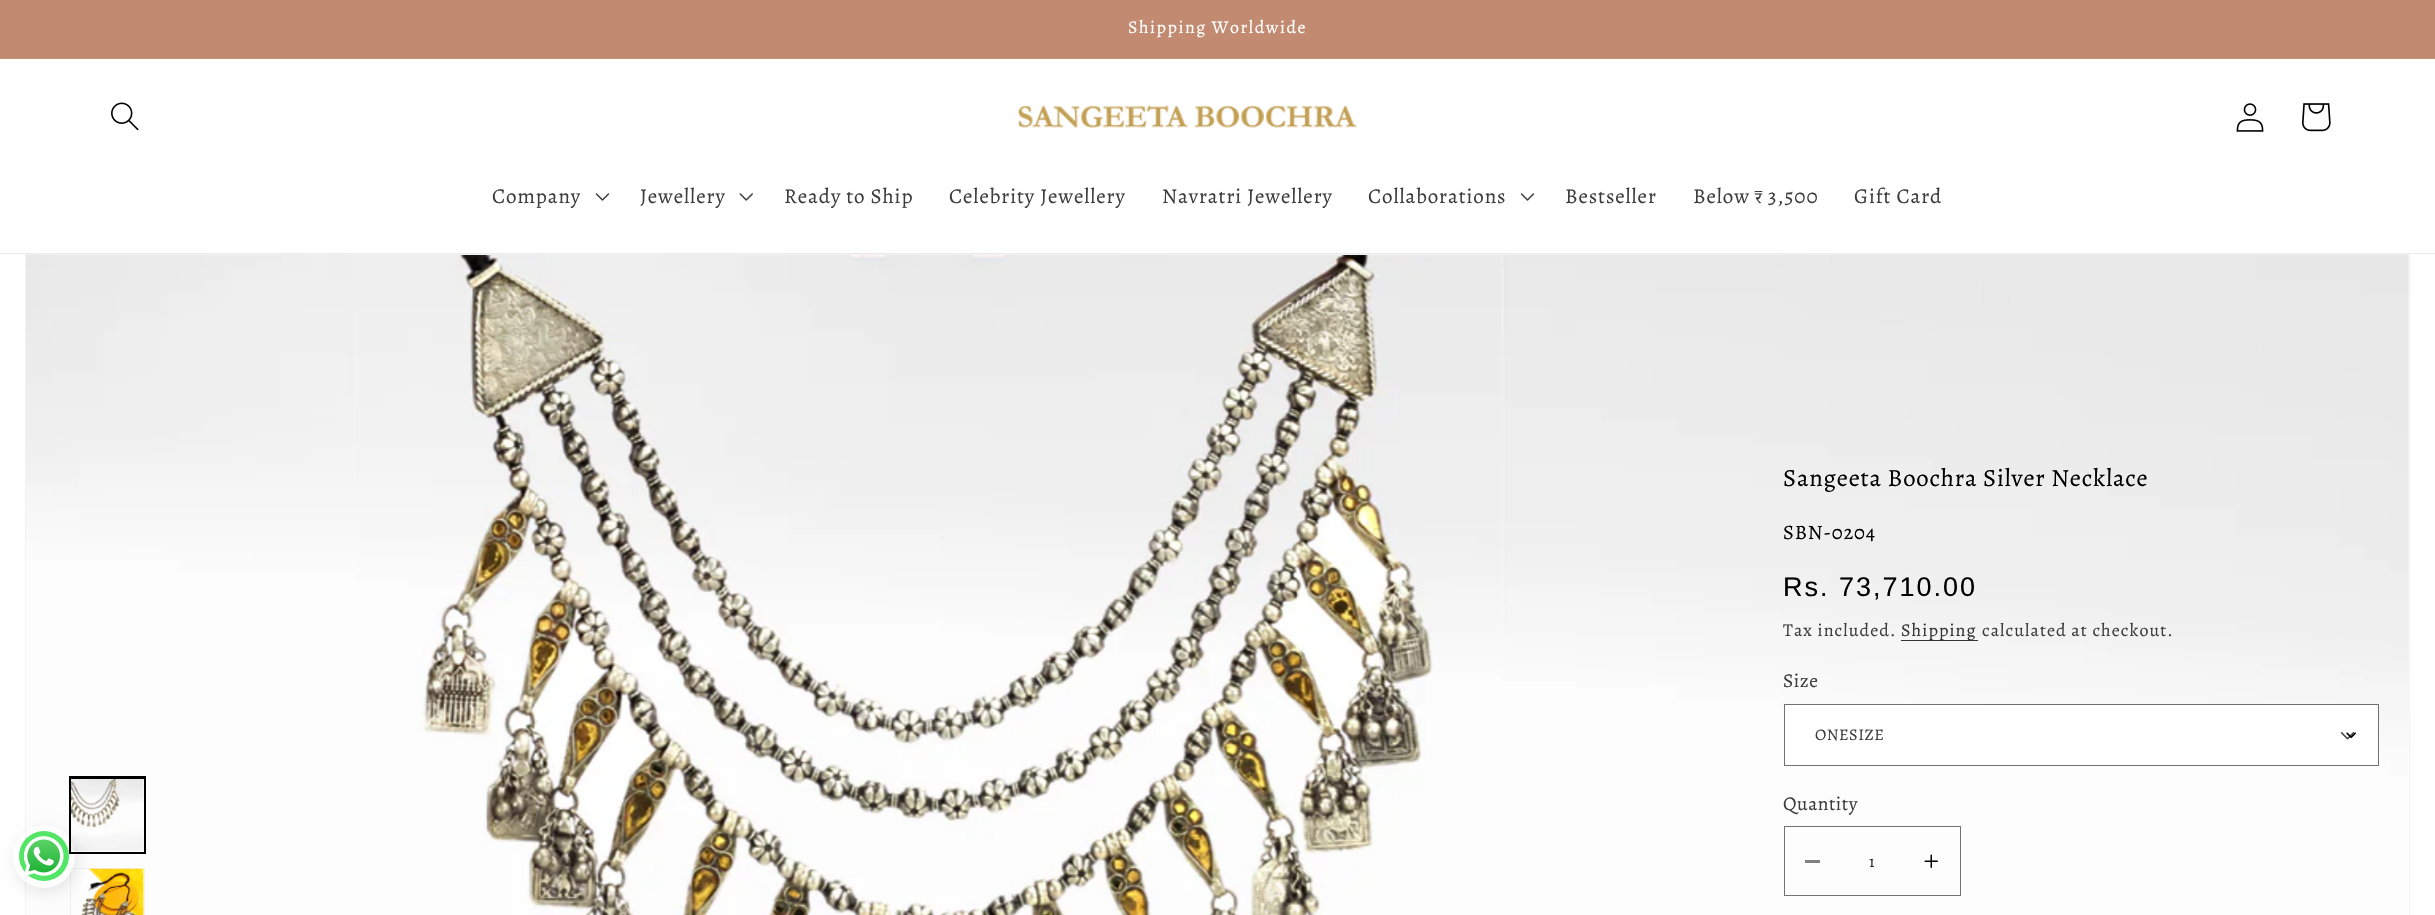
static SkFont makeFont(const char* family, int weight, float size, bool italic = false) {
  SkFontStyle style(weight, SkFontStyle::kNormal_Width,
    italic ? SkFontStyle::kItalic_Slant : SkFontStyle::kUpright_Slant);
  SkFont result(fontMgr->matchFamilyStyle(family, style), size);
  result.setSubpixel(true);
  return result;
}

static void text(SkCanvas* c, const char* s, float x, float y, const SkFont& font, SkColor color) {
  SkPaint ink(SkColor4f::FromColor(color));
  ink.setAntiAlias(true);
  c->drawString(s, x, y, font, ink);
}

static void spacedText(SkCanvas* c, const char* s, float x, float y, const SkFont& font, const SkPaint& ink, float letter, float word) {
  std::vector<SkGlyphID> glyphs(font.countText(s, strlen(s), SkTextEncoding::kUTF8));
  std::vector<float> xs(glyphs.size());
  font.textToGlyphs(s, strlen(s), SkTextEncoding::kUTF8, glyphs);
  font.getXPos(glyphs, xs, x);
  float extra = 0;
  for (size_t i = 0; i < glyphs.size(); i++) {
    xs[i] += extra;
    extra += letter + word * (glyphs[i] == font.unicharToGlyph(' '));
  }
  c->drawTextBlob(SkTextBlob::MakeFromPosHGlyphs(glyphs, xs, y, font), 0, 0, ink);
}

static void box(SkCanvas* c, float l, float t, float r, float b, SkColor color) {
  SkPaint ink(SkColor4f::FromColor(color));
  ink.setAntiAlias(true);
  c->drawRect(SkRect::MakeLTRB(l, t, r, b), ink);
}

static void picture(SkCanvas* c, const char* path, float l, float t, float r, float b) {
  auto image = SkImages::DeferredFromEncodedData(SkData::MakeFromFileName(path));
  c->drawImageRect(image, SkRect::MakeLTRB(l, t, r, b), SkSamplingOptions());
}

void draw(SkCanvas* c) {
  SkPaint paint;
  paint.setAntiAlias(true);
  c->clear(0xffffffff);
  box(c, 0, 0, 2435, 58, 0xffc18a71);
  box(c, 0, 58, 2435, 59, 0xffc6937c);
  SkFont face1 = makeFont("Alegreya", 400, 17.9f);
  paint.setColor(0xffffffff);
  spacedText(c, "Shipping Worldwide", 1128, 33, face1, paint, 1.5f, 0);
  box(c, 0, 253, 2435, 254, 0xffebebeb);
  picture(c, "img_01.png", 111, 102, 139, 131);
  picture(c, "img_02.png", 1018, 105, 1357, 128);
  picture(c, "img_03.png", 2236, 103, 2264, 132);
  picture(c, "img_04.png", 2302, 103, 2331, 132);
  SkFont face2 = makeFont("Alegreya", 400, 21);
  paint.setColor(0xff3d3d3d);
  spacedText(c, "Company", 492, 203, face2, paint, 0.9f, 0);
  picture(c, "img_05.png", 595, 193, 610, 201);
  spacedText(c, "Jewellery", 640, 203, face2, paint, 0.9f, 0);
  picture(c, "img_06.png", 739, 193, 753, 201);
  spacedText(c, "Ready to Ship", 784, 203, face2, paint, 0.9f, 0);
  spacedText(c, "Celebrity Jewellery", 949, 203, face2, paint, 0.9f, 0);
  spacedText(c, "Navratri Jewellery", 1162, 203, face2, paint, 0.9f, 0);
  spacedText(c, "Collaborations", 1368, 203, face2, paint, 0.9f, 0);
  picture(c, "img_05.png", 1520, 193, 1535, 201);
  spacedText(c, "Bestseller", 1565, 203, face2, paint, 0.9f, 0);
  spacedText(c, "Below ₹ 3,500", 1693, 203, face2, paint, 0.9f, 0);
  spacedText(c, "Gift Card", 1854, 203, face2, paint, 0.9f, 0);
  paint.setStyle(SkPaint::kStroke_Style);
  paint.setStrokeWidth(1);
  paint.setColor(0xfff2f2f2);
  c->drawRect(SkRect::MakeLTRB(25.5f, 254.5f, 2409.5f, 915.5f), paint);
  picture(c, "img_08.png", 26, 255, 2409, 915);
  paint.setStrokeWidth(2);
  paint.setColor(0xff000000);
  c->drawRect(SkRect::MakeLTRB(70, 777, 145, 853), paint);
  paint.setStrokeWidth(1);
  c->drawRect(SkRect::MakeLTRB(70.5f, 778.5f, 144.5f, 852.5f), paint);
  picture(c, "img_09.png", 71, 779, 144, 851);
  paint.setColor(0xfff0f0f0);
  c->drawRect(SkRect::MakeLTRB(70.5f, 868.5f, 144.5f, 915.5f), paint);
  picture(c, "img_10.png", 81, 868, 144, 915);
  c->save();
  c->clipPath(SkPathBuilder(SkPathFillType::kEvenOdd).moveTo(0, 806).lineTo(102, 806).lineTo(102, 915).lineTo(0, 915).close().moveTo(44, 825).cubicTo(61, 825, 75, 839, 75, 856).lineTo(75, 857).cubicTo(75, 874, 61, 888, 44, 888).cubicTo(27, 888, 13, 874, 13, 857).lineTo(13, 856).cubicTo(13, 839, 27, 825, 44, 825).close().detach(), true);
  paint.setStyle(SkPaint::kFill_Style);
  paint.setColor(0x17000000);
  paint.setMaskFilter(SkMaskFilter::MakeBlur(kNormal_SkBlurStyle, 7.5f));
  c->drawRoundRect(SkRect::MakeLTRB(15, 830, 78, 893), 31.5f, 31.5f, paint);
  paint.setMaskFilter(nullptr);
  c->restore();
  paint.setColor(0xff53e666);
  c->drawCircle(44, 856, 25, paint);
  picture(c, "img_07.png", 24, 836, 64, 876);
  SkFont face3 = makeFont("Alegreya", 400, 24.75f);
  paint.setColor(0xff000000);
  spacedText(c, "Sangeeta Boochra Silver Necklace", 1783, 486, face3, paint, 0.8f, 0);
  SkFont face4 = makeFont("Alegreya", 400, 20.5f);
  spacedText(c, "SBN-0204", 1783, 539, face4, paint, 0.8f, 0);
  SkFont face5 = makeFont("Liberation Sans", 400, 27);
  spacedText(c, "Rs. 73,710.00", 1783, 596, face5, paint, 2, 0);
  SkFont face6 = makeFont("Alegreya", 400, 18);
  paint.setColor(0xff3d3d3d);
  spacedText(c, "Tax included.", 1783, 636, face6, paint, 1.05f, 0);
  box(c, 1901, 640, 1978, 641, 0xff343434);
  paint.setColor(0xff333333);
  spacedText(c, "Shipping", 1901, 636, face6, paint, 1.05f, 0);
  paint.setColor(0xff3d3d3d);
  spacedText(c, "calculated at checkout.", 1982, 636, face6, paint, 1.05f, 0);
  SkFont face7 = makeFont("Alegreya", 400, 19.5f);
  spacedText(c, "Size", 1783, 687, face7, paint, 0.5f, 0);
  box(c, 1785, 705, 2378, 764, 0xffffffff);
  picture(c, "img_11.png", 2346, 732, 2356, 739);
  picture(c, "img_12.png", 2340, 732, 2355, 740);
  paint.setStyle(SkPaint::kStroke_Style);
  paint.setColor(0x8c000000);
  c->drawRect(SkRect::MakeLTRB(1784.5f, 704.5f, 2378.5f, 765.5f), paint);
  SkFont face8 = makeFont("Alegreya", 400, 16.25f);
  paint.setStyle(SkPaint::kFill_Style);
  paint.setColor(0xff3d3d3d);
  spacedText(c, "ONESIZE", 1815, 740, face8, paint, 0.5f, 0);
  spacedText(c, "Quantity", 1783, 810, face7, paint, 0.5f, 0);
  box(c, 1805, 860, 1820, 863, 0xff808080);
  picture(c, "img_13.png", 1924, 854, 1938, 868);
  paint.setStyle(SkPaint::kStroke_Style);
  paint.setColor(0xff737373);
  c->drawRect(SkRect::MakeLTRB(1784.5f, 826.5f, 1960.5f, 895.5f), paint);
  text(c, "1", 1869, 867, face8, 0xff262626);
}
